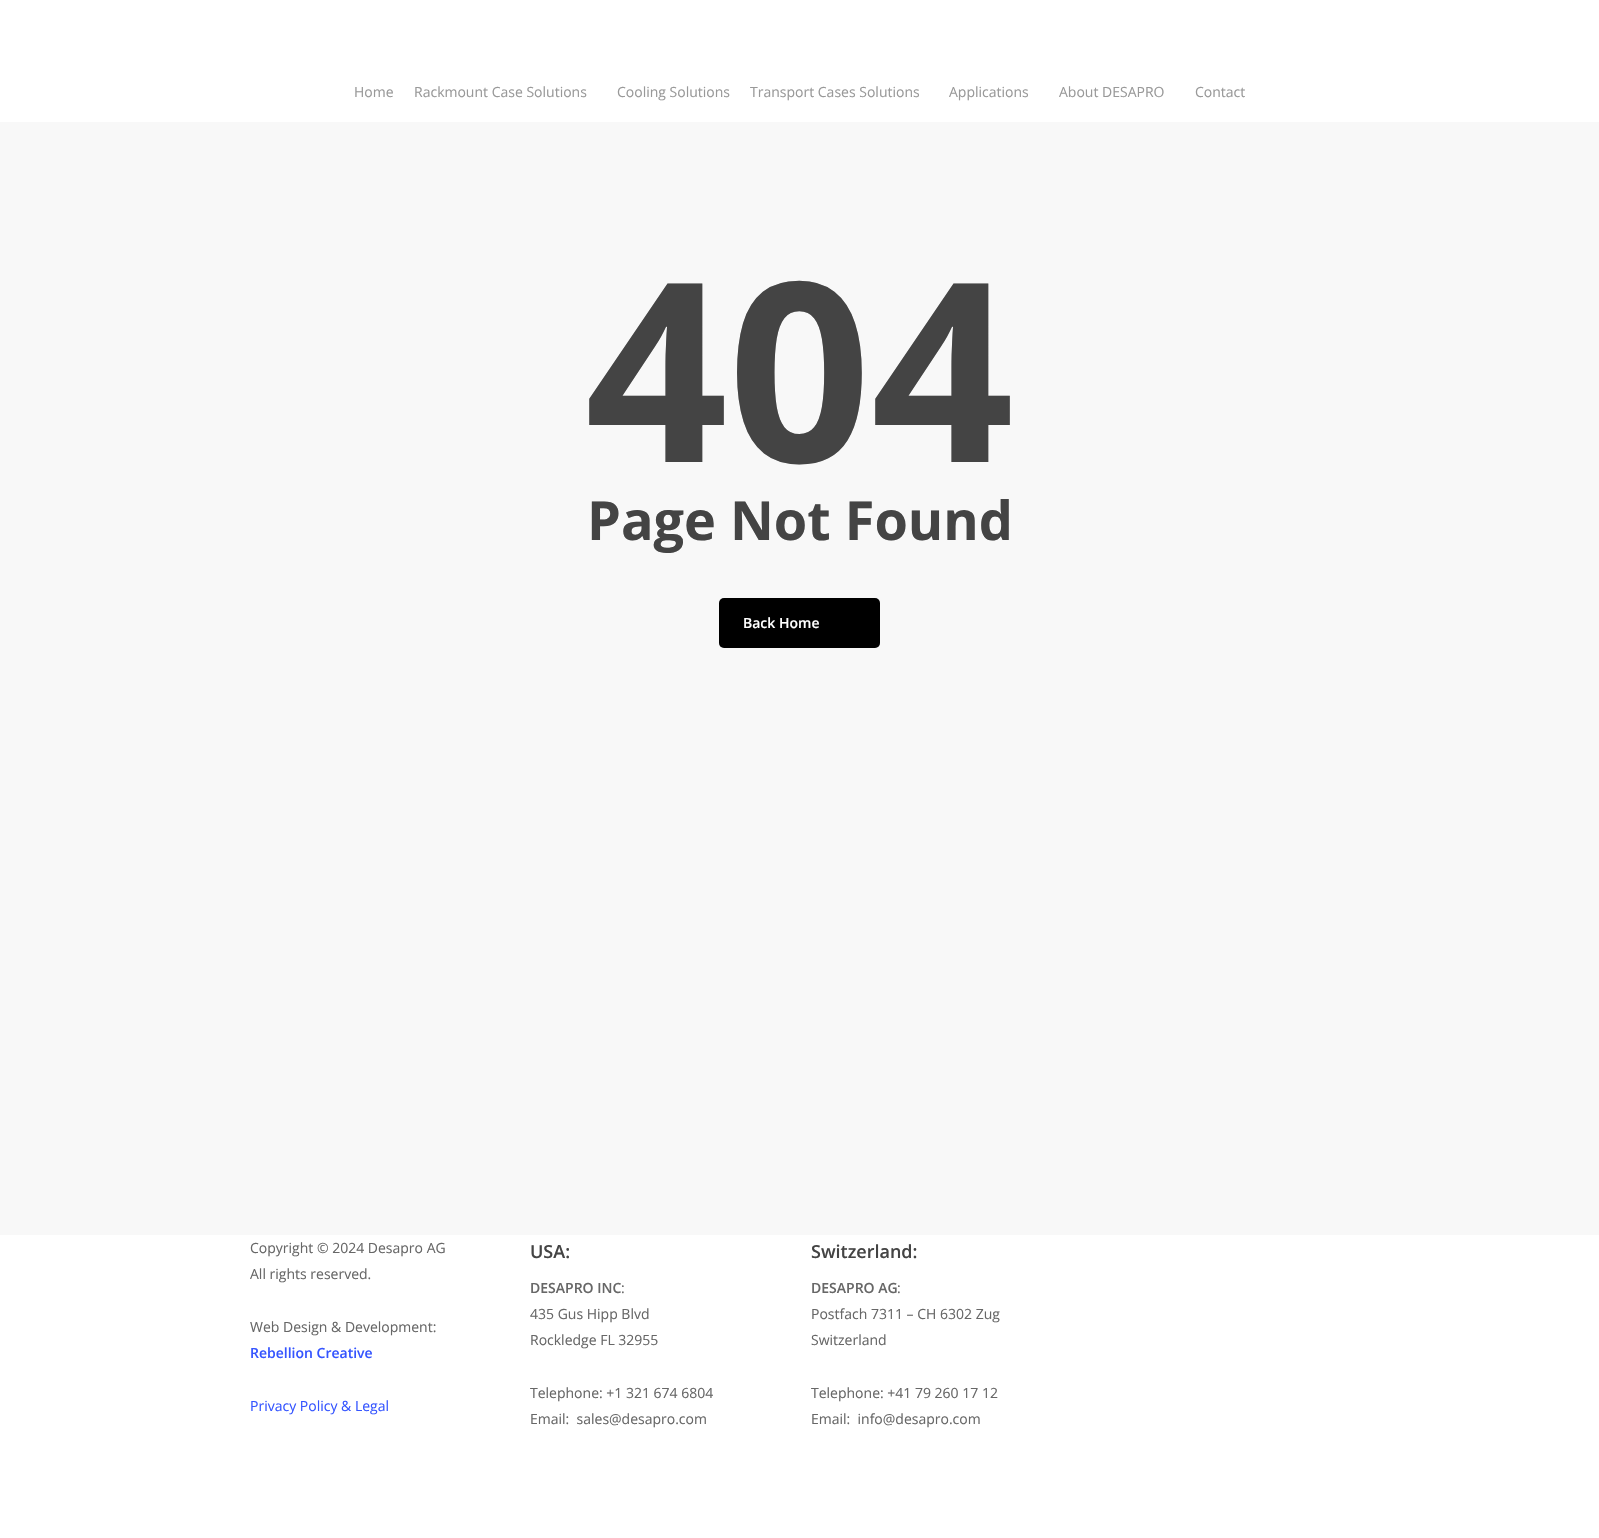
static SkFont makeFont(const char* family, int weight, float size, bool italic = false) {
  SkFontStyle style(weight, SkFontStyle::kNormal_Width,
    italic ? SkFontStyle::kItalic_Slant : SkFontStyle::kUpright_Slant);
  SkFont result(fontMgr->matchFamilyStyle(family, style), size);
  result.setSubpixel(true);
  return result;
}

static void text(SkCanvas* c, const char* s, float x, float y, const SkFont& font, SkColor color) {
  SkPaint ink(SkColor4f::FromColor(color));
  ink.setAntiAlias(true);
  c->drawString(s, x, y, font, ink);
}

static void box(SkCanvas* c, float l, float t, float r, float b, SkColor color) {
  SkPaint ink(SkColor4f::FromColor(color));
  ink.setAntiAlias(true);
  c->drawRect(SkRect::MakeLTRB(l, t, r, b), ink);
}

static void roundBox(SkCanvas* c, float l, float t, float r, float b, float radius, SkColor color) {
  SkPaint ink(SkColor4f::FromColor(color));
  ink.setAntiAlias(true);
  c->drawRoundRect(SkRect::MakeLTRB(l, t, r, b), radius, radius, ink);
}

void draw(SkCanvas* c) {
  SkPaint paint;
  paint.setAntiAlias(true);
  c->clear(0xffffffff);
  SkFont face1 = makeFont("Open Sans", 400, 14);
  text(c, "Home", 354, 97, face1, 0xff999999);
  text(c, "Rackmount Case Solutions", 414, 97, face1, 0xff999999);
  text(c, "Cooling Solutions", 617, 97, face1, 0xff999999);
  text(c, "Transport Cases Solutions", 750, 97, face1, 0xff999999);
  text(c, "Applications", 949, 97, face1, 0xff999999);
  text(c, "About DESAPRO", 1059, 97, face1, 0xff999999);
  text(c, "Contact", 1195, 97, face1, 0xff999999);
  box(c, 0, 122, 1599, 1235, 0xfff8f8f8);
  SkFont face2 = makeFont("Open Sans", 700, 250);
  text(c, "404", 585, 462, face2, 0xff444444);
  SkFont face3 = makeFont("Open Sans", 700, 54);
  text(c, "Page Not Found", 587, 540, face3, 0xff444444);
  roundBox(c, 719, 598, 880, 648, 5, 0xff000000);
  paint.setColor(0x1a000000);
  c->drawPath(SkPathBuilder().moveTo(719, 640).lineTo(719, 643).cubicTo(719, 646, 721, 648, 724, 648).lineTo(875, 648).cubicTo(878, 648, 880, 646, 880, 643).lineTo(880, 640).cubicTo(880, 643, 878, 645, 875, 645).lineTo(724, 645).cubicTo(721, 645, 719, 643, 719, 640).close().detach(), paint);
  SkFont face4 = makeFont("Open Sans", 600, 14);
  text(c, "Back Home", 743, 628, face4, 0xffffffff);
  text(c, "Copyright © 2024 Desapro AG", 250, 1253, face1, 0xff676767);
  text(c, "All rights reserved.", 250, 1279, face1, 0xff676767);
  text(c, "Web Design & Development:", 250, 1332, face1, 0xff676767);
  text(c, "Rebellion Creative", 250, 1358, face4, 0xff3555ff);
  text(c, "Privacy Policy & Legal", 250, 1411, face1, 0xff3555ff);
  SkFont face5 = makeFont("Open Sans", 600, 18);
  text(c, "USA:", 530, 1258, face5, 0xff444444);
  text(c, "DESAPRO INC", 530, 1293, face4, 0xff676767);
  text(c, ":", 621, 1293, face1, 0xff676767);
  text(c, "435 Gus Hipp Blvd", 530, 1319, face1, 0xff676767);
  text(c, "Rockledge FL 32955", 530, 1345, face1, 0xff676767);
  text(c, "Telephone: +1 321 674 6804", 530, 1398, face1, 0xff676767);
  text(c, "Email:  sales@desapro.com", 530, 1424, face1, 0xff676767);
  text(c, "Switzerland:", 811, 1258, face5, 0xff444444);
  text(c, "DESAPRO AG", 811, 1293, face4, 0xff676767);
  text(c, ":", 897, 1293, face1, 0xff676767);
  text(c, "Postfach 7311 – CH 6302 Zug", 811, 1319, face1, 0xff676767);
  text(c, "Switzerland", 811, 1345, face1, 0xff676767);
  text(c, "Telephone: +41 79 260 17 12", 811, 1398, face1, 0xff676767);
  text(c, "Email:  info@desapro.com", 811, 1424, face1, 0xff676767);
}
